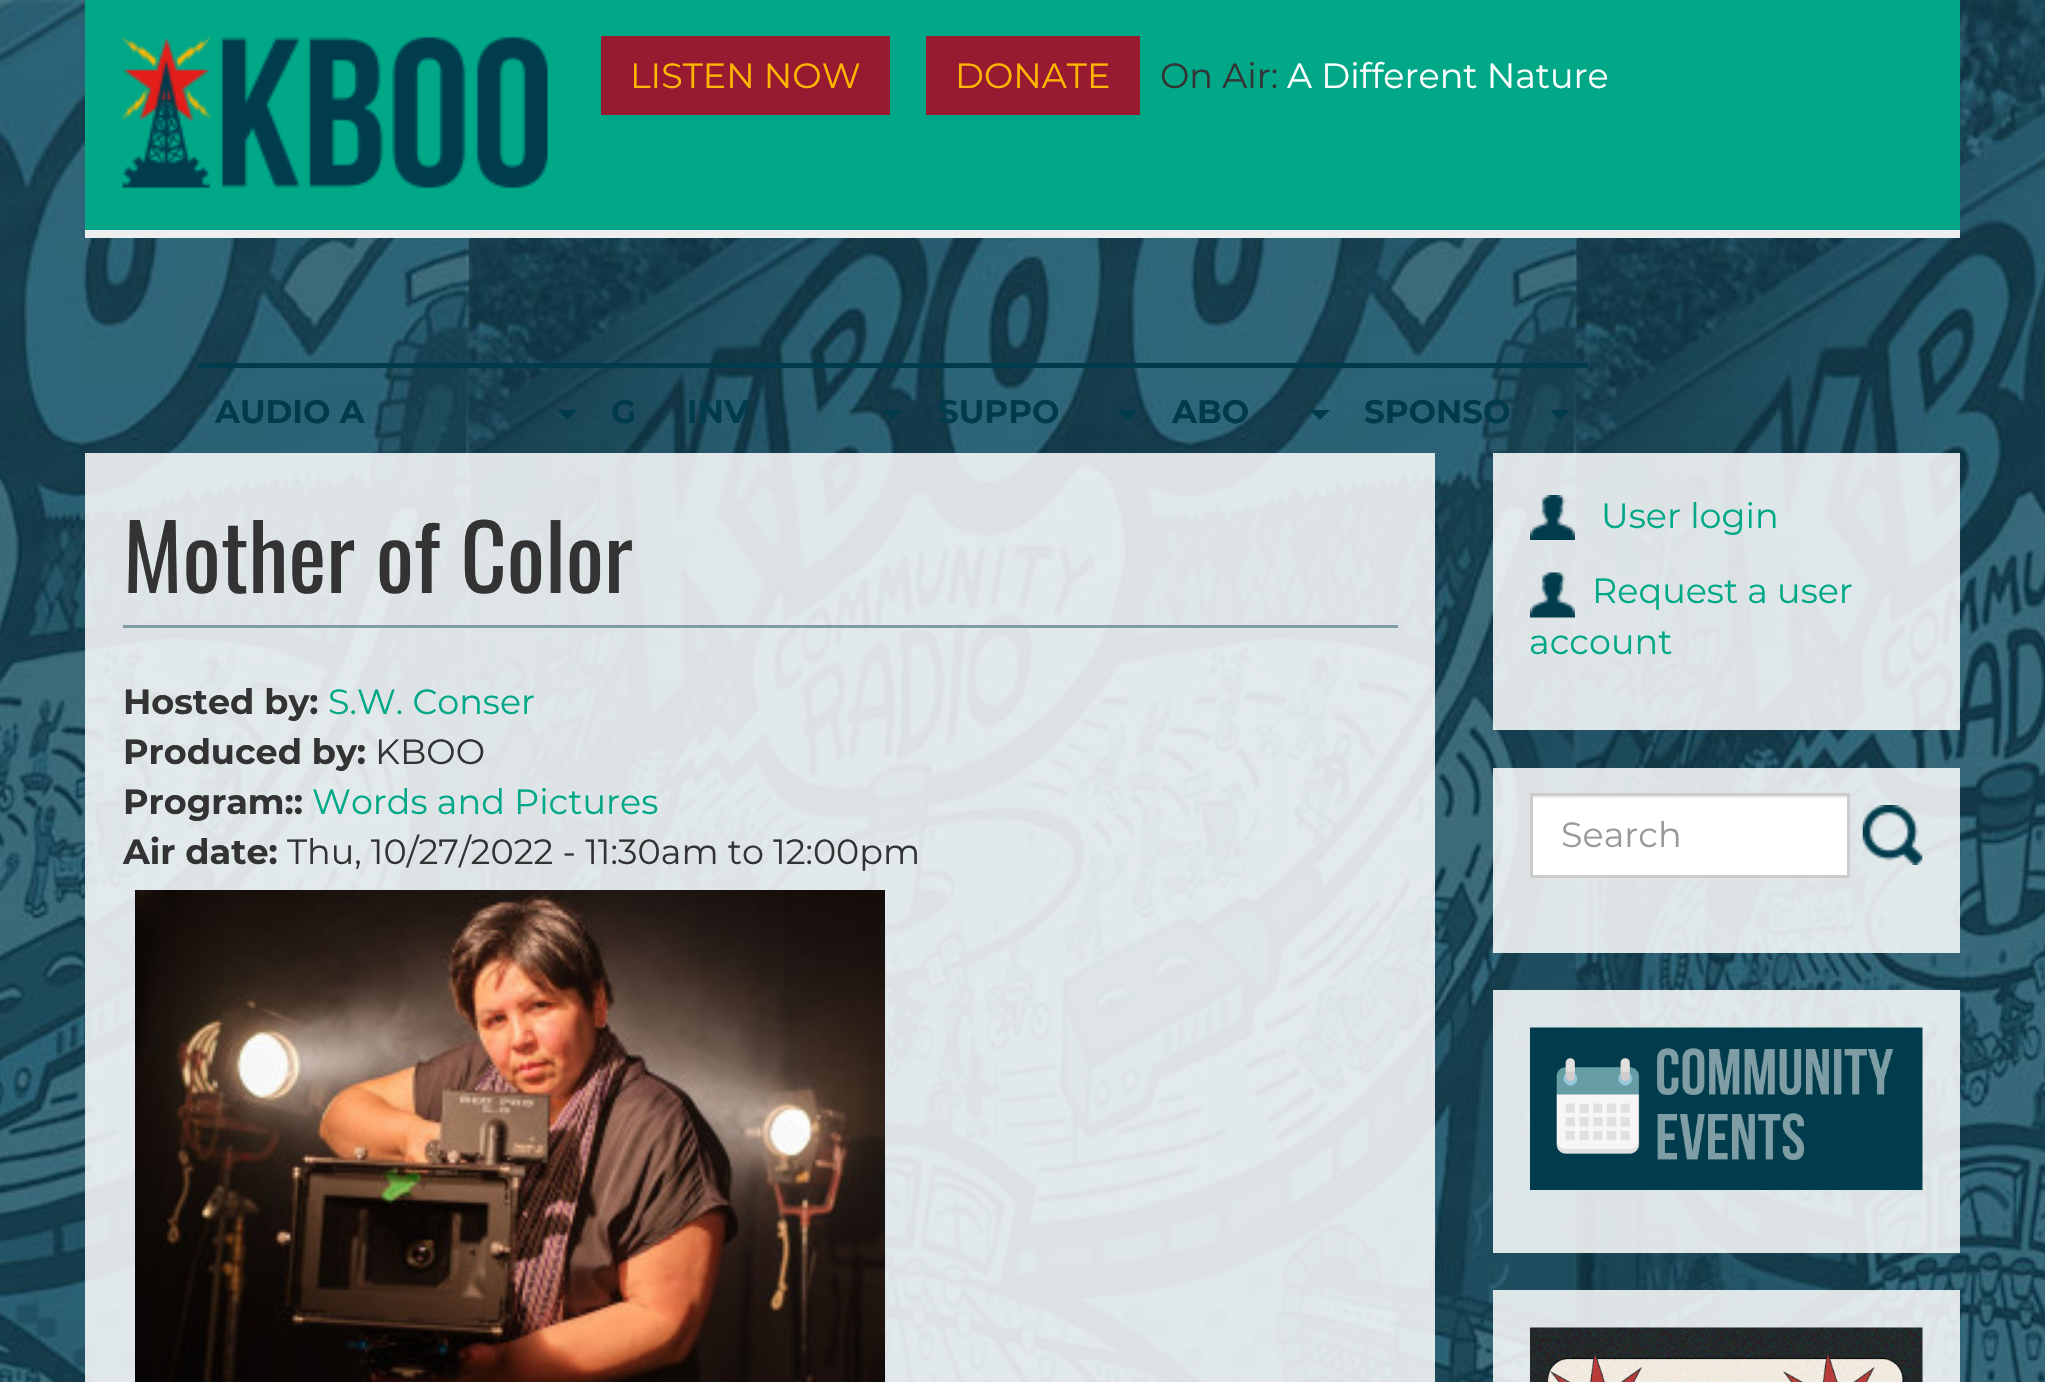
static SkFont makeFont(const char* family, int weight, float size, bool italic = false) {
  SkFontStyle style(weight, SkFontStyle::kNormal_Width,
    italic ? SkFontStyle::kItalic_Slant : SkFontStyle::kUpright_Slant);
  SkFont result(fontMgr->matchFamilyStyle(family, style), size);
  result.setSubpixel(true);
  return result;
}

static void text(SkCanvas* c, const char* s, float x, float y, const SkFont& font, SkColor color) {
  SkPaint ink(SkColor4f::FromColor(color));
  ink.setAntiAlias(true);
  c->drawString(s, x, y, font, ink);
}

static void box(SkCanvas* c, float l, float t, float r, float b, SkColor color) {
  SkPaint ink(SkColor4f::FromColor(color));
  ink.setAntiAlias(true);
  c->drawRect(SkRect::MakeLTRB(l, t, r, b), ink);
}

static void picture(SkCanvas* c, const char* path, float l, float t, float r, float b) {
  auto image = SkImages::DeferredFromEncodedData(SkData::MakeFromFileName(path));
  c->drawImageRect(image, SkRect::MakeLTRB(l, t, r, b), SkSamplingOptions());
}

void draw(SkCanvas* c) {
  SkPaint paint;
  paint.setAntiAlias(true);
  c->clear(0xffffffff);
  picture(c, "img_01.png", 0, 0, 2045, 1382);
  box(c, 85, 0, 1960, 230, 0xff00a887);
  box(c, 85, 230, 1960, 238, 0xffeeeeee);
  picture(c, "img_02.png", 122, 36, 548, 189);
  box(c, 601, 36, 890, 115, 0xff971a31);
  SkFont face1 = makeFont("Montserrat", 400, 35);
  text(c, "LISTEN NOW", 630, 88, face1, 0xffffb600);
  box(c, 926, 36, 1140, 115, 0xff971a31);
  text(c, "DONATE", 955, 88, face1, 0xffffb600);
  text(c, "On Air:", 1160, 88, face1, 0xff333333);
  text(c, "A Different Nature", 1287, 88, face1, 0xffffffff);
  box(c, 198, 363, 1588, 368, 0xff003b4c);
  SkFont face2 = makeFont("Montserrat", 700, 32.5f);
  text(c, "AUDIO A", 215, 423, face2, 0xff003b4c);
  paint.setColor(0xff003b4c);
  c->drawPath(SkPathBuilder().moveTo(557.5f, 410).lineTo(577.5f, 410).lineTo(567.5f, 420).close().detach(), paint);
  text(c, "G", 611, 423, face2, 0xff003b4c);
  text(c, "INV", 687, 423, face2, 0xff003b4c);
  c->drawPath(SkPathBuilder().moveTo(882.5f, 410).lineTo(902.5f, 410).lineTo(892.5f, 420).close().detach(), paint);
  text(c, "SUPPO", 938, 423, face2, 0xff003b4c);
  c->drawPath(SkPathBuilder().moveTo(1117.5f, 410).lineTo(1137.5f, 410).lineTo(1127.5f, 420).close().detach(), paint);
  text(c, "ABO", 1172, 423, face2, 0xff003b4c);
  c->drawPath(SkPathBuilder().moveTo(1310, 410).lineTo(1330, 410).lineTo(1320, 420).close().detach(), paint);
  text(c, "SPONSO", 1364, 423, face2, 0xff003b4c);
  c->drawPath(SkPathBuilder().moveTo(1550, 410).lineTo(1570, 410).lineTo(1560, 420).close().detach(), paint);
  box(c, 85, 453, 1435, 1382, 0xd9ffffff);
  box(c, 123, 625, 1398, 628, 0xff7f9da5);
  SkFont face3 = makeFont("Oswald", 400, 90);
  text(c, "Mother of Color", 123, 593, face3, 0xff333333);
  SkFont face4 = makeFont("Montserrat", 700, 35);
  text(c, "Hosted by:", 123, 714, face4, 0xff333333);
  text(c, "S.W. Conser", 328, 714, face1, 0xff00a887);
  text(c, "Produced by:", 123, 764, face4, 0xff333333);
  text(c, "KBOO", 375, 764, face1, 0xff333333);
  text(c, "Program::", 123, 814, face4, 0xff333333);
  text(c, "Words and Pictures", 312, 814, face1, 0xff00a887);
  text(c, "Air date:", 123, 864, face4, 0xff333333);
  text(c, "Thu, 10/27/2022 - 11:30am to 12:00pm", 287, 864, face1, 0xff333333);
  picture(c, "img_03.png", 135, 890, 885, 1382);
  box(c, 1493, 453, 1960, 730, 0xd9ffffff);
  picture(c, "img_04.png", 1530, 495, 1575, 540);
  text(c, "User login", 1601, 528, face1, 0xff00a887);
  picture(c, "img_05.png", 1530, 572, 1575, 618);
  text(c, "Request a user", 1592, 603, face1, 0xff00a887);
  text(c, "account", 1529, 654, face1, 0xff00a887);
  box(c, 1493, 768, 1960, 953, 0xd9ffffff);
  box(c, 1533, 798, 1847, 875, 0xffffffff);
  box(c, 1533, 796, 1848, 798, 0xffececec);
  paint.setStyle(SkPaint::kStroke_Style);
  paint.setStrokeWidth(3);
  paint.setColor(0xffcccccc);
  c->drawRect(SkRect::MakeLTRB(1531.5f, 794.5f, 1848.5f, 876.5f), paint);
  text(c, "Search", 1561, 847, face1, 0xff999999);
  picture(c, "img_06.png", 1862, 805, 1923, 865);
  box(c, 1493, 990, 1960, 1253, 0xd9ffffff);
  picture(c, "img_07.png", 1530, 1027, 1923, 1190);
  box(c, 1493, 1290, 1960, 1382, 0xd9ffffff);
  picture(c, "img_08.png", 1530, 1327, 1923, 1382);
}
